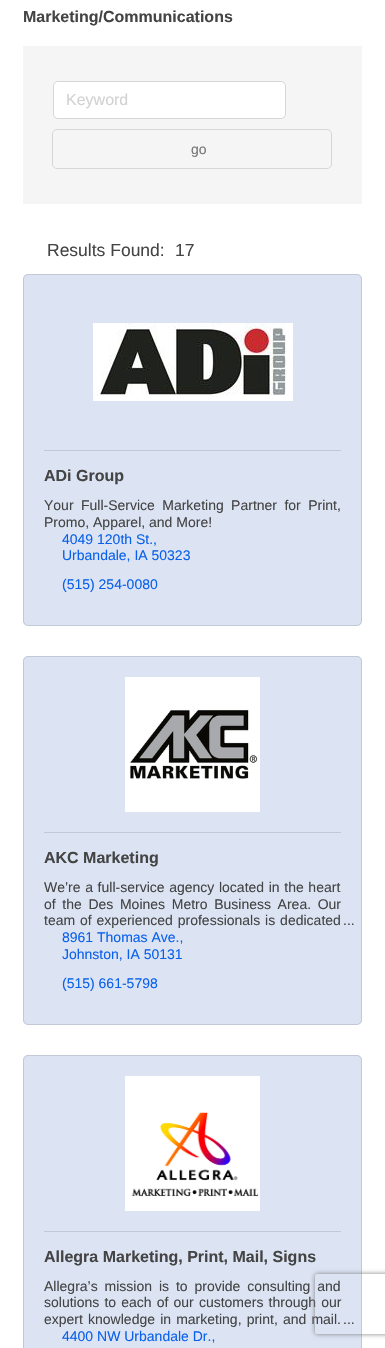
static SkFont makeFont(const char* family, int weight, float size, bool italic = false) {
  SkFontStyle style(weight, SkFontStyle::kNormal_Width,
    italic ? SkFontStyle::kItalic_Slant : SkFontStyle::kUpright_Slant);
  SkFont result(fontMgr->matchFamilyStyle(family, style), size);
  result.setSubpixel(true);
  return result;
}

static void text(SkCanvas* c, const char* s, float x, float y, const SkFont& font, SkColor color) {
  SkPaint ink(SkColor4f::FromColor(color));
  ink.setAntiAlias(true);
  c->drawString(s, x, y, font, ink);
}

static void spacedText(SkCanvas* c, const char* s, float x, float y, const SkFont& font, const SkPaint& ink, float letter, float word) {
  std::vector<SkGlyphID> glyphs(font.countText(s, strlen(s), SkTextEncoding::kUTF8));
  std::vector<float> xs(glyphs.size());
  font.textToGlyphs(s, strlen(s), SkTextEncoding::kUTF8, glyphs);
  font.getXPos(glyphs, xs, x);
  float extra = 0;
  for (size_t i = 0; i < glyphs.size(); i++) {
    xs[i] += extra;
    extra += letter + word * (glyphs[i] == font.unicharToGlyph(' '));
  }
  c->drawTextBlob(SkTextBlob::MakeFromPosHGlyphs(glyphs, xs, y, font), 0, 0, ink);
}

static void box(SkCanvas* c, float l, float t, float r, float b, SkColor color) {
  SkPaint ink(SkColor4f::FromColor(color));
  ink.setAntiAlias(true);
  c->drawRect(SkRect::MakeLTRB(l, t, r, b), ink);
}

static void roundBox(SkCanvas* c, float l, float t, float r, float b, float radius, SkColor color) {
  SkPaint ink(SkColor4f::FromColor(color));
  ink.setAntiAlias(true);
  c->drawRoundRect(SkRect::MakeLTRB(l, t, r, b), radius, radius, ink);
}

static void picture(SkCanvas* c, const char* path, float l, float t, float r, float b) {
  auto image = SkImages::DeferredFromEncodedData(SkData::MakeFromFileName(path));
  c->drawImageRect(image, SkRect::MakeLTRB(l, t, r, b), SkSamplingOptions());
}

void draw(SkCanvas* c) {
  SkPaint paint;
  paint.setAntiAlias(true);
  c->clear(0xffffffff);
  SkFont face1 = makeFont("Liberation Sans", 700, 16);
  text(c, "Marketing/Communications", 23, 22, face1, 0xff444444);
  box(c, 23, 46, 362, 204, 0xfff5f5f5);
  paint.setColor(0xffffffff);
  c->drawRoundRect(SkRect::MakeLTRB(53.5f, 81.5f, 285.5f, 118.5f), 4.5f, 4.5f, paint);
  paint.setStyle(SkPaint::kStroke_Style);
  paint.setStrokeWidth(1);
  paint.setColor(0xffd6d6d6);
  c->drawRoundRect(SkRect::MakeLTRB(53.5f, 81.5f, 285.5f, 118.5f), 4.5f, 4.5f, paint);
  SkFont face2 = makeFont("Liberation Sans", 400, 16);
  text(c, "Keyword", 66, 105, face2, 0xffd2d2d2);
  c->drawRoundRect(SkRect::MakeLTRB(52.5f, 129.5f, 331.5f, 168.5f), 4.5f, 4.5f, paint);
  SkFont face3 = makeFont("Liberation Sans", 400, 14);
  text(c, "go", 191, 154, face3, 0xff777777);
  SkFont face4 = makeFont("Liberation Sans", 400, 17.5f);
  text(c, "Results Found:", 47, 256, face4, 0xff444444);
  text(c, "17", 175, 256, face4, 0xff444444);
  roundBox(c, 23, 274, 362, 626, 5, 0xffdce4f4);
  paint.setColor(0x1f000000);
  c->drawRoundRect(SkRect::MakeLTRB(23.5f, 274.5f, 361.5f, 625.5f), 4.5f, 4.5f, paint);
  picture(c, "img_01.png", 93, 323, 293, 401);
  box(c, 44, 450, 341, 451, 0xffc1c8d6);
  text(c, "ADi Group", 44, 481, face1, 0xff444444);
  paint.setStyle(SkPaint::kFill_Style);
  paint.setColor(0xff444444);
  spacedText(c, "Your Full-Service Marketing Partner for Print,", 44, 510, face3, paint, 0, 3.5f);
  text(c, "Promo, Apparel, and More!", 44, 527, face3, 0xff444444);
  text(c, "4049 120th St.,", 62, 544, face3, 0xff0960eb);
  text(c, "Urbandale, IA 50323", 62, 560, face3, 0xff0960eb);
  text(c, "(515) 254-0080", 62, 589, face3, 0xff0960eb);
  roundBox(c, 23, 656, 362, 1025, 5, 0xffdce4f4);
  paint.setStyle(SkPaint::kStroke_Style);
  paint.setColor(0x1f000000);
  c->drawRoundRect(SkRect::MakeLTRB(23.5f, 656.5f, 361.5f, 1024.5f), 4.5f, 4.5f, paint);
  picture(c, "img_02.png", 125, 677, 260, 812);
  box(c, 44, 832, 341, 833, 0xffc1c8d6);
  text(c, "AKC Marketing", 44, 863, face1, 0xff444444);
  paint.setStyle(SkPaint::kFill_Style);
  paint.setColor(0xff444444);
  spacedText(c, "We’re a full-service agency located in the heart", 44, 892, face3, paint, 0, 0.75f);
  spacedText(c, "of the Des Moines Metro Business Area. Our", 44, 909, face3, paint, 0, 2.75f);
  spacedText(c, "team of experienced professionals is dedicated", 44, 925, face3, paint, 0, 1);
  text(c, "...", 343, 925, face3, 0xff444444);
  text(c, "8961 Thomas Ave.,", 62, 942, face3, 0xff0960eb);
  text(c, "Johnston, IA 50131", 62, 959, face3, 0xff0960eb);
  text(c, "(515) 661-5798", 62, 988, face3, 0xff0960eb);
  roundBox(c, 23, 1055, 362, 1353, 5, 0xffdce4f4);
  paint.setStyle(SkPaint::kStroke_Style);
  paint.setColor(0x1f000000);
  c->drawRoundRect(SkRect::MakeLTRB(23.5f, 1055.5f, 361.5f, 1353.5f), 4.5f, 4.5f, paint);
  picture(c, "img_03.png", 125, 1076, 260, 1211);
  box(c, 44, 1231, 341, 1232, 0xffc1c8d6);
  text(c, "Allegra Marketing, Print, Mail, Signs", 44, 1262, face1, 0xff444444);
  paint.setStyle(SkPaint::kFill_Style);
  paint.setColor(0xff444444);
  spacedText(c, "Allegra’s mission is to provide consulting and", 44, 1291, face3, paint, 0, 3);
  spacedText(c, "solutions to each of our customers through our", 44, 1307, face3, paint, 0, 1.25f);
  spacedText(c, "expert knowledge in marketing, print, and mail.", 44, 1324, face3, paint, 0, 1.25f);
  text(c, "...", 343, 1324, face3, 0xff444444);
  text(c, "4400 NW Urbandale Dr.,", 62, 1341, face3, 0xff0960eb);
  c->save();
  c->clipPath(SkPathBuilder(SkPathFillType::kEvenOdd).moveTo(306, 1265).lineTo(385, 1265).lineTo(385, 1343).lineTo(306, 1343).close().moveTo(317, 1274).lineTo(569, 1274).cubicTo(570, 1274, 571, 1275, 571, 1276).lineTo(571, 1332).cubicTo(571, 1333, 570, 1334, 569, 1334).lineTo(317, 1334).cubicTo(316, 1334, 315, 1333, 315, 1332).lineTo(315, 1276).cubicTo(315, 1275, 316, 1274, 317, 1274).close().detach(), true);
  paint.setColor(0xff808080);
  paint.setMaskFilter(SkMaskFilter::MakeBlur(kNormal_SkBlurStyle, 2.5f));
  c->drawRoundRect(SkRect::MakeLTRB(315, 1274, 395, 1334), 2, 2, paint);
  paint.setMaskFilter(nullptr);
  c->restore();
}
